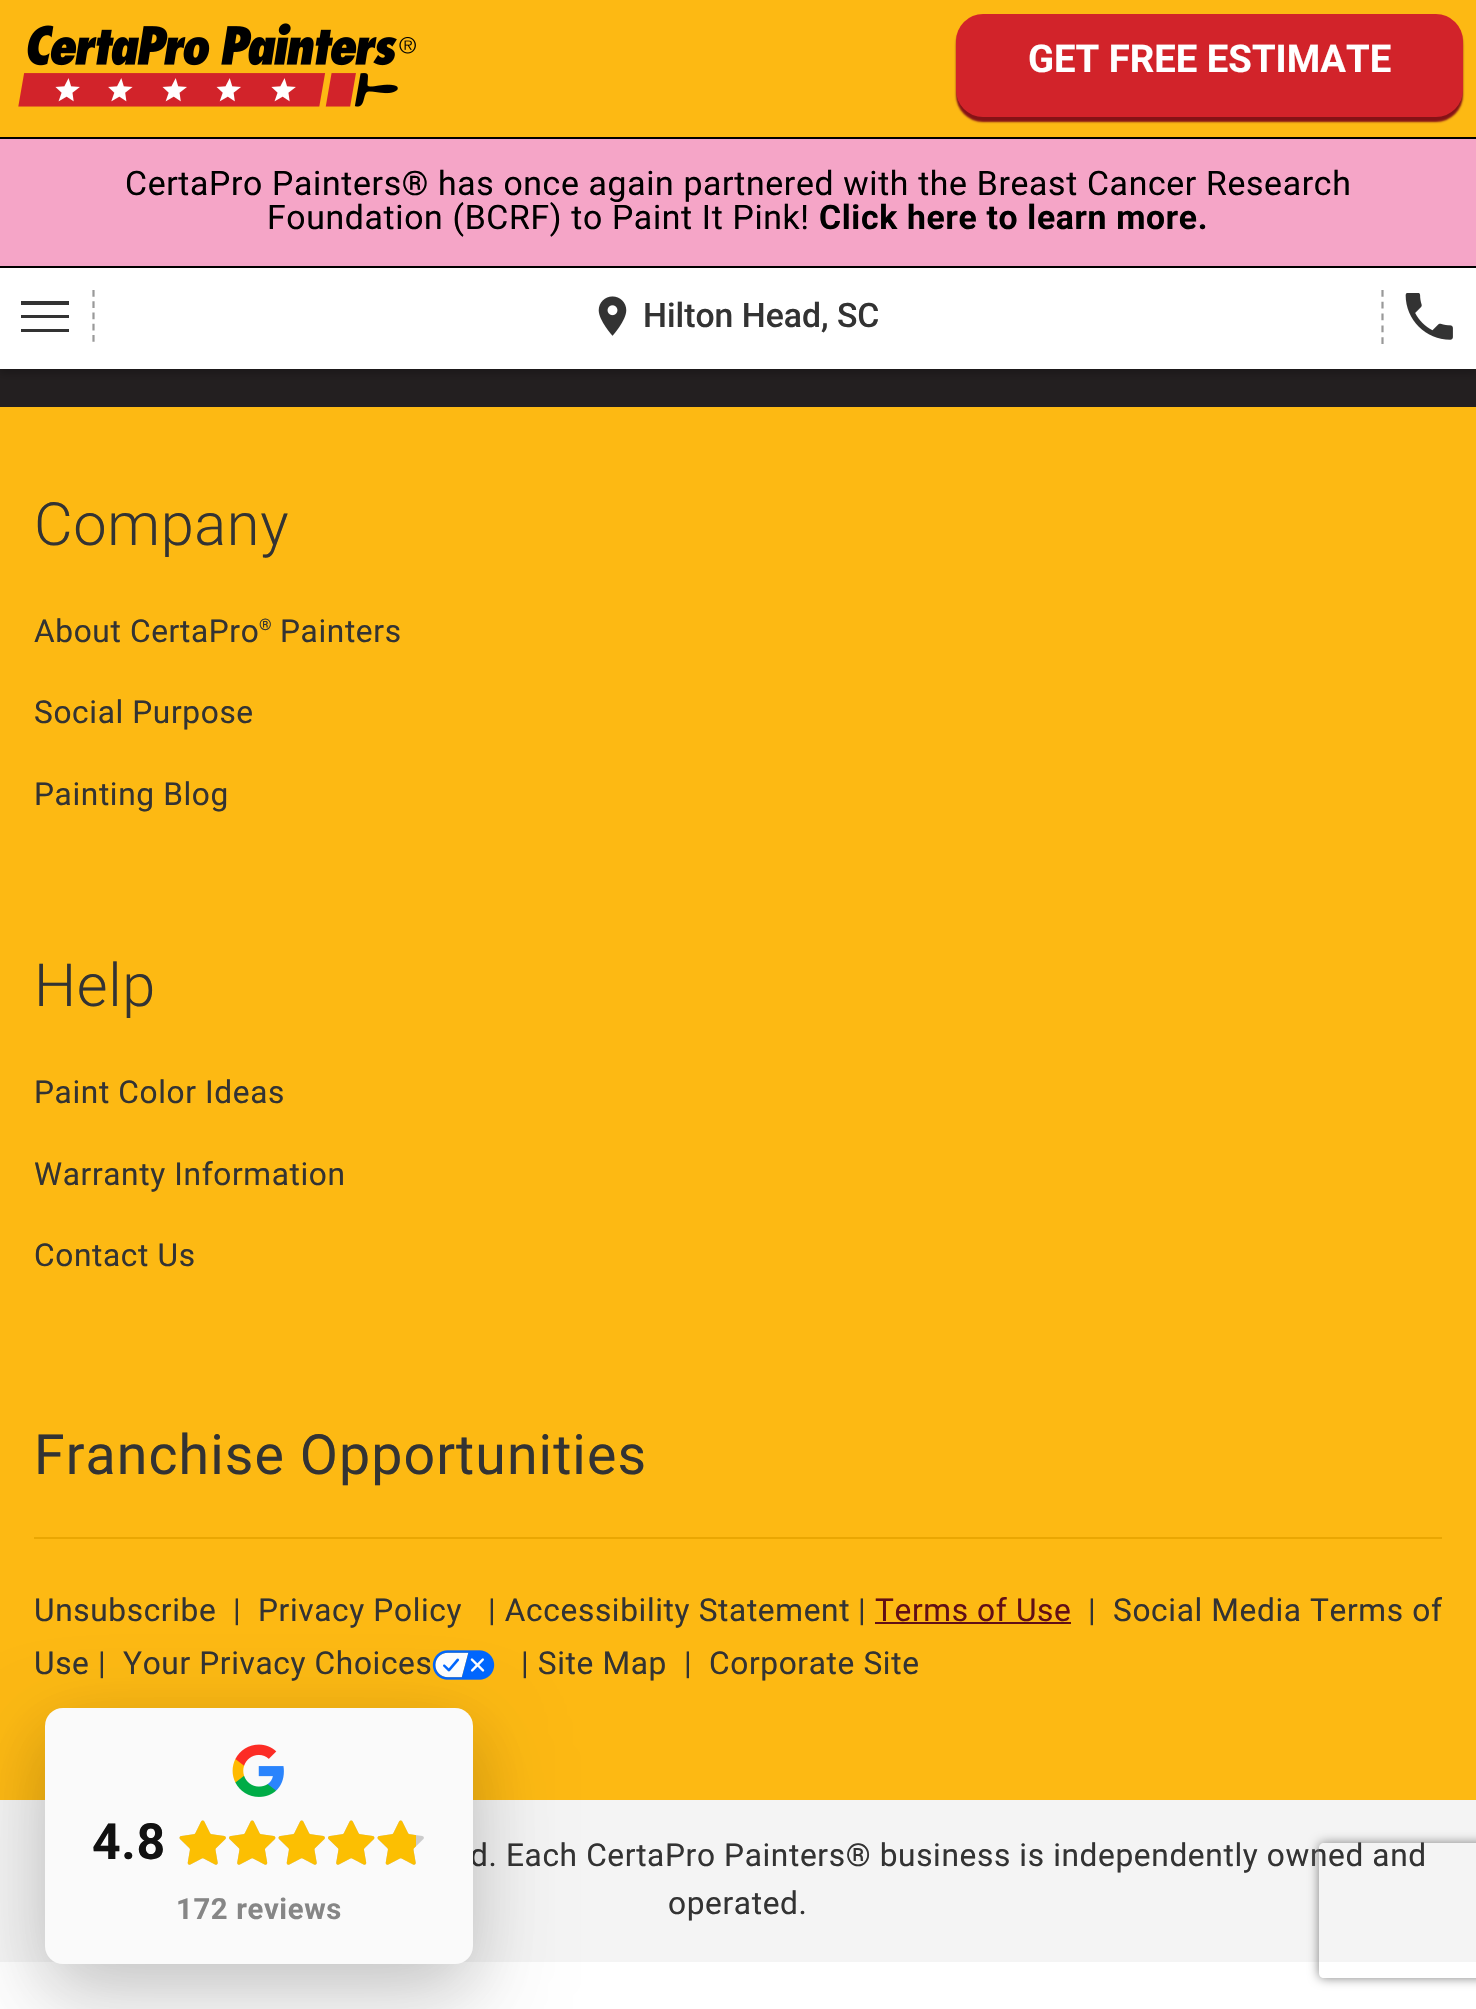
static SkFont makeFont(const char* family, int weight, float size, bool italic = false) {
  SkFontStyle style(weight, SkFontStyle::kNormal_Width,
    italic ? SkFontStyle::kItalic_Slant : SkFontStyle::kUpright_Slant);
  SkFont result(fontMgr->matchFamilyStyle(family, style), size);
  result.setSubpixel(true);
  return result;
}

static void text(SkCanvas* c, const char* s, float x, float y, const SkFont& font, SkColor color) {
  SkPaint ink(SkColor4f::FromColor(color));
  ink.setAntiAlias(true);
  c->drawString(s, x, y, font, ink);
}

static void spacedText(SkCanvas* c, const char* s, float x, float y, const SkFont& font, const SkPaint& ink, float letter, float word) {
  std::vector<SkGlyphID> glyphs(font.countText(s, strlen(s), SkTextEncoding::kUTF8));
  std::vector<float> xs(glyphs.size());
  font.textToGlyphs(s, strlen(s), SkTextEncoding::kUTF8, glyphs);
  font.getXPos(glyphs, xs, x);
  float extra = 0;
  for (size_t i = 0; i < glyphs.size(); i++) {
    xs[i] += extra;
    extra += letter + word * (glyphs[i] == font.unicharToGlyph(' '));
  }
  c->drawTextBlob(SkTextBlob::MakeFromPosHGlyphs(glyphs, xs, y, font), 0, 0, ink);
}

static void box(SkCanvas* c, float l, float t, float r, float b, SkColor color) {
  SkPaint ink(SkColor4f::FromColor(color));
  ink.setAntiAlias(true);
  c->drawRect(SkRect::MakeLTRB(l, t, r, b), ink);
}

static void roundBox(SkCanvas* c, float l, float t, float r, float b, float radius, SkColor color) {
  SkPaint ink(SkColor4f::FromColor(color));
  ink.setAntiAlias(true);
  c->drawRoundRect(SkRect::MakeLTRB(l, t, r, b), radius, radius, ink);
}

static void picture(SkCanvas* c, const char* path, float l, float t, float r, float b) {
  auto image = SkImages::DeferredFromEncodedData(SkData::MakeFromFileName(path));
  c->drawImageRect(image, SkRect::MakeLTRB(l, t, r, b), SkSamplingOptions());
}

void draw(SkCanvas* c) {
  SkPaint paint;
  paint.setAntiAlias(true);
  c->clear(0xffffffff);
  box(c, 0, 0, 1476, 137, 0xfffdb913);
  picture(c, "img_01.png", 18, 23, 416, 107);
  paint.setColor(0xff851216);
  paint.setMaskFilter(SkMaskFilter::MakeBlur(kNormal_SkBlurStyle, 1));
  c->drawRoundRect(SkRect::MakeLTRB(956, 18, 1463, 122), 27, 27, paint);
  paint.setMaskFilter(nullptr);
  roundBox(c, 956, 14, 1463, 117, 27, 0xffd2232a);
  SkFont face1 = makeFont("Roboto", 700, 38.25f);
  text(c, "GET FREE ESTIMATE", 1028, 72, face1, 0xffffffff);
  box(c, 0, 139, 1476, 266, 0xfff5a5c7);
  box(c, 0, 137, 1476, 139, 0xff000000);
  box(c, 0, 266, 1476, 268, 0xff000000);
  SkFont face2 = makeFont("Roboto", 400, 33.75f);
  paint.setColor(0xff000000);
  spacedText(c, "CertaPro Painters® has once again partnered with the Breast Cancer Research", 125, 195, face2, paint, 0.67f, 0);
  spacedText(c, "Foundation (BCRF) to Paint It Pink!", 267, 229, face2, paint, 0.67f, 0);
  SkFont face3 = makeFont("Roboto", 700, 33.75f);
  spacedText(c, "Click here to learn more.", 819, 229, face3, paint, 0.67f, 0);
  box(c, 0, 369, 1476, 407, 0xff231f20);
  paint.setColor(0x33000000);
  paint.setMaskFilter(SkMaskFilter::MakeBlur(kNormal_SkBlurStyle, 3.5f));
  c->drawRect(SkRect::MakeLTRB(0, 272, 1476, 374), paint);
  paint.setMaskFilter(nullptr);
  box(c, 0, 268, 1476, 369, 0xffffffff);
  box(c, 21, 301, 69, 305, 0xff333333);
  paint.setStyle(SkPaint::kStroke_Style);
  paint.setStrokeWidth(2.2f);
  paint.setColor(0xff999999);
  paint.setPathEffect(SkDashPathEffect::Make({{6.75f, 4.5f}}, 0));
  c->drawPath(SkPathBuilder().moveTo(93.5f, 290).lineTo(93.5f, 342).detach(), paint);
  paint.setPathEffect(nullptr);
  box(c, 21, 315, 69, 318, 0xff333333);
  box(c, 21, 329, 69, 332, 0xff333333);
  picture(c, "img_02.png", 598, 296, 627, 336);
  SkFont face4 = makeFont("Roboto", 500, 33.75f);
  text(c, "Hilton Head, SC", 643, 327, face4, 0xff333333);
  paint.setPathEffect(SkDashPathEffect::Make({{6.75f, 5.06f}}, 0));
  c->drawPath(SkPathBuilder().moveTo(1382.5f, 290).lineTo(1382.5f, 344).detach(), paint);
  paint.setPathEffect(nullptr);
  picture(c, "img_03.png", 1405, 293, 1453, 340);
  box(c, 0, 407, 1476, 1800, 0xfffdb913);
  SkFont face5 = makeFont("Roboto", 300, 59.5f);
  paint.setStyle(SkPaint::kFill_Style);
  paint.setColor(0xff333333);
  spacedText(c, "Company", 34, 545, face5, paint, 0.63f, 0);
  SkFont face6 = makeFont("Roboto", 400, 31.65f);
  spacedText(c, "About CertaPro", 34, 642, face6, paint, 0.63f, 0);
  SkFont face7 = makeFont("Roboto", 400, 16);
  spacedText(c, "®", 259, 630, face7, paint, 0.63f, 0);
  spacedText(c, "Painters", 280, 642, face6, paint, 0.63f, 0);
  spacedText(c, "Social Purpose", 34, 723, face6, paint, 0.63f, 0);
  spacedText(c, "Painting Blog", 34, 805, face6, paint, 0.63f, 0);
  spacedText(c, "Help", 34, 1006, face5, paint, 0.63f, 0);
  spacedText(c, "Paint Color Ideas", 34, 1103, face6, paint, 0.63f, 0);
  spacedText(c, "Warranty Information", 34, 1185, face6, paint, 0.63f, 0);
  spacedText(c, "Contact Us", 34, 1266, face6, paint, 0.63f, 0);
  SkFont face8 = makeFont("Roboto", 400, 55.4f);
  spacedText(c, "Franchise Opportunities", 34, 1474, face8, paint, 1.1f, 0);
  box(c, 34, 1537, 1442, 1539, 0xffeaa702);
  spacedText(c, "Unsubscribe", 34, 1621, face6, paint, 0.63f, 0);
  spacedText(c, "|", 233, 1621, face6, paint, 0.63f, 0);
  spacedText(c, "Privacy Policy", 258, 1621, face6, paint, 0.63f, 0);
  spacedText(c, "| Accessibility Statement", 488, 1621, face6, paint, 0.63f, 0);
  spacedText(c, "|", 858, 1621, face6, paint, 0.63f, 0);
  paint.setColor(0xff610f16);
  spacedText(c, "Terms of Use", 875, 1621, face6, paint, 0.63f, 0);
  box(c, 875, 1622, 1071, 1624, 0xff610f16);
  paint.setColor(0xff333333);
  spacedText(c, "|", 1088, 1621, face6, paint, 0.63f, 0);
  spacedText(c, "Social Media Terms of", 1113, 1621, face6, paint, 0.63f, 0);
  spacedText(c, "Use |", 34, 1674, face6, paint, 0.63f, 0);
  spacedText(c, "Your Privacy Choices", 123, 1674, face6, paint, 0.63f, 0);
  picture(c, "img_04.png", 432, 1650, 495, 1680);
  spacedText(c, "| Site Map", 521, 1674, face6, paint, 0.63f, 0);
  spacedText(c, "|", 684, 1674, face6, paint, 0.63f, 0);
  spacedText(c, "Corporate Site", 709, 1674, face6, paint, 0.63f, 0);
  box(c, 0, 1800, 1476, 1962, 0xfff4f4f4);
  spacedText(c, "d. Each CertaPro Painters® business is independently owned and", 470, 1866, face6, paint, 0.63f, 0);
  spacedText(c, "operated.", 668, 1914, face6, paint, 0.63f, 0);
  paint.setColor(0x26000000);
  paint.setMaskFilter(SkMaskFilter::MakeBlur(kNormal_SkBlurStyle, 34));
  c->drawRoundRect(SkRect::MakeLTRB(45, 1730, 473, 1987), 18, 18, paint);
  paint.setMaskFilter(nullptr);
  paint.setColor(0x1a000000);
  paint.setMaskFilter(SkMaskFilter::MakeBlur(kNormal_SkBlurStyle, 45));
  c->drawRoundRect(SkRect::MakeLTRB(45, 1742, 473, 1998), 18, 18, paint);
  paint.setMaskFilter(nullptr);
  roundBox(c, 45, 1708, 473, 1964, 18, 0xfffafafa);
  picture(c, "img_05.png", 232, 1744, 284, 1797);
  SkFont face9 = makeFont("Roboto", 700, 50);
  paint.setColor(0xff111111);
  spacedText(c, "4.8", 92, 1859, face9, paint, 0.63f, 0);
  picture(c, "img_06.png", 179, 1820, 226, 1865);
  picture(c, "img_07.png", 179, 1820, 226, 1865);
  picture(c, "img_08.png", 229, 1820, 276, 1865);
  picture(c, "img_09.png", 229, 1820, 276, 1865);
  picture(c, "img_06.png", 278, 1820, 325, 1865);
  picture(c, "img_07.png", 278, 1820, 325, 1865);
  picture(c, "img_08.png", 328, 1820, 375, 1865);
  picture(c, "img_09.png", 328, 1820, 375, 1865);
  picture(c, "img_06.png", 377, 1820, 424, 1865);
  picture(c, "img_10.png", 377, 1820, 416, 1865);
  SkFont face10 = makeFont("Roboto", 700, 29.25f);
  paint.setColor(0xff868686);
  spacedText(c, "172 reviews", 176, 1919, face10, paint, 0.63f, 0);
  c->save();
  c->clipPath(SkPathBuilder(SkPathFillType::kEvenOdd).moveTo(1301, 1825).lineTo(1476, 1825).lineTo(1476, 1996).lineTo(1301, 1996).close().moveTo(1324, 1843).lineTo(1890, 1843).cubicTo(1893, 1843, 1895, 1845, 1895, 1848).lineTo(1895, 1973).cubicTo(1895, 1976, 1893, 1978, 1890, 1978).lineTo(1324, 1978).cubicTo(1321, 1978, 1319, 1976, 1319, 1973).lineTo(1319, 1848).cubicTo(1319, 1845, 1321, 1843, 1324, 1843).close().detach(), true);
  paint.setColor(0xff808080);
  paint.setMaskFilter(SkMaskFilter::MakeBlur(kNormal_SkBlurStyle, 5.5f));
  c->drawRoundRect(SkRect::MakeLTRB(1319, 1843, 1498, 1978), 5, 5, paint);
  paint.setMaskFilter(nullptr);
  c->restore();
}
